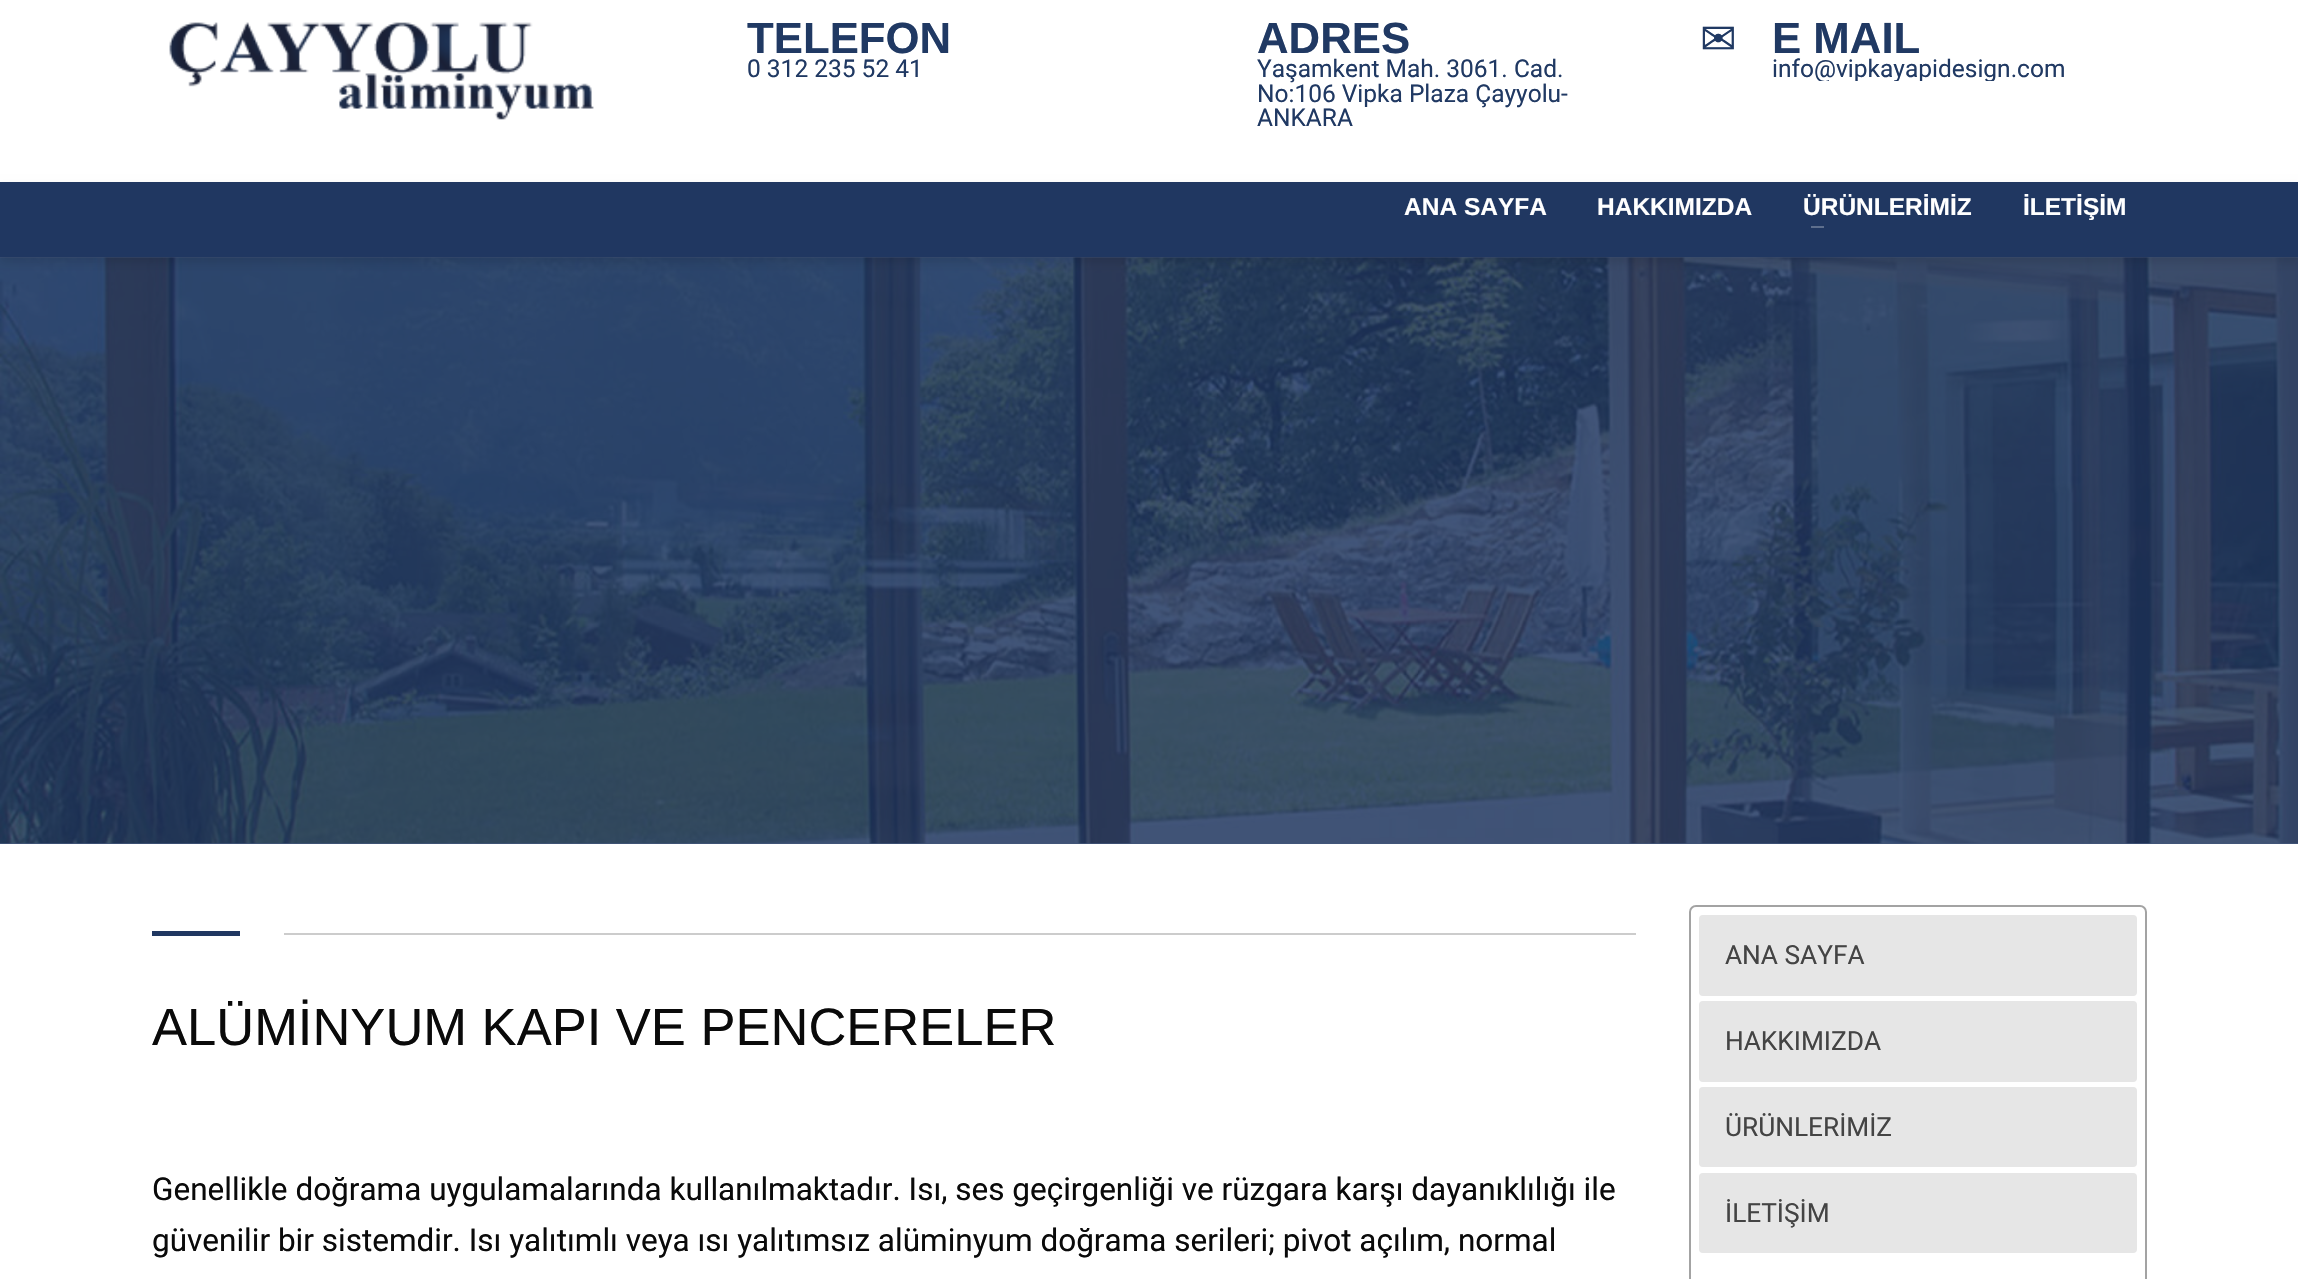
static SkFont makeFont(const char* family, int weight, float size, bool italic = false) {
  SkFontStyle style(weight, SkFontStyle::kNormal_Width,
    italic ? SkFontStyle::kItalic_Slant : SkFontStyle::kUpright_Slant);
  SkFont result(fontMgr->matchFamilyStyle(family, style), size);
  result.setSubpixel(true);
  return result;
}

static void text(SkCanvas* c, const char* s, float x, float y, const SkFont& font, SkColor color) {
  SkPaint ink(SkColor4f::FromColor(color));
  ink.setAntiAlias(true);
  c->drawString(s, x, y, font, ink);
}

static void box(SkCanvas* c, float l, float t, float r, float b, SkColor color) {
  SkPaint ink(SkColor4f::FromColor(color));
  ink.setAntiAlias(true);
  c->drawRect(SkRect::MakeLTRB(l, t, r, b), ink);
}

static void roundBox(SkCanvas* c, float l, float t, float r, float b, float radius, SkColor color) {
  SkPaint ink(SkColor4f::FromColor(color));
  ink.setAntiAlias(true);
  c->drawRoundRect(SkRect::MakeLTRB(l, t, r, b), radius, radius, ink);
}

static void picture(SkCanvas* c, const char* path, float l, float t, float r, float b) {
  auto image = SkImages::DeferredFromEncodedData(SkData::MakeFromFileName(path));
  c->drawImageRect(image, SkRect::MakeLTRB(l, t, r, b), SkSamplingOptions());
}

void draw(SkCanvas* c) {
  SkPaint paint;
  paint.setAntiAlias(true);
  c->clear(0xffffffff);
  box(c, 0, 257, 2298, 844, 0xff415579);
  picture(c, "img_01.png", 169, 22, 594, 120);
  SkFont face1 = makeFont("Liberation Sans", 700, 43.75f);
  text(c, "TELEFON", 747, 53, face1, 0xff203963);
  SkFont face2 = makeFont("Roboto", 400, 24.5f);
  text(c, "0 312 235 52 41", 747, 77, face2, 0xff203963);
  text(c, "ADRES", 1257, 53, face1, 0xff203963);
  text(c, "Yaşamkent Mah. 3061. Cad.", 1257, 77, face2, 0xff203963);
  text(c, "No:106 Vipka Plaza Çayyolu-", 1257, 102, face2, 0xff203963);
  text(c, "ANKARA", 1257, 126, face2, 0xff203963);
  SkFont face3 = makeFont("DejaVu Sans", 400, 43.75f);
  text(c, "✉", 1700, 54, face3, 0xff203963);
  text(c, "E MAIL", 1772, 53, face1, 0xff203963);
  c->save();
  c->clipRect(SkRect::MakeLTRB(1771, 18, 2147, 81));
  text(c, "info@vipkayapidesign.com", 1772, 77, face2, 0xff203963);
  c->restore();
  picture(c, "img_02.png", 0, 257, 2298, 844);
  paint.setColor(0x1a000000);
  paint.setMaskFilter(SkMaskFilter::MakeBlur(kNormal_SkBlurStyle, 4.5f));
  c->drawRect(SkRect::MakeLTRB(0, 187, 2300, 263), paint);
  paint.setMaskFilter(nullptr);
  box(c, 0, 182, 2298, 257, 0xff203761);
  SkFont face4 = makeFont("Liberation Sans", 700, 24.5f);
  text(c, "ANA SAYFA", 1404, 215, face4, 0xffffffff);
  text(c, "HAKKIMIZDA", 1597, 215, face4, 0xffffffff);
  text(c, "ÜRÜNLERİMİZ", 1803, 215, face4, 0xffffffff);
  box(c, 1811, 226, 1824, 228, 0xff5e6f8d);
  text(c, "İLETİŞİM", 2023, 215, face4, 0xffffffff);
  box(c, 152, 931, 240, 936, 0xff203761);
  box(c, 284, 933, 1636, 935, 0xffcccccc);
  SkFont face5 = makeFont("Liberation Sans", 400, 52.5f);
  text(c, "ALÜMİNYUM KAPI VE PENCERELER", 152, 1045, face5, 0xff0a0a0a);
  SkFont face6 = makeFont("Roboto", 400, 31.5f);
  text(c, "Genellikle doğrama uygulamalarında kullanılmaktadır. Isı, ses geçirgenliği ve rüzgara karşı dayanıklılığı ile", 152, 1200, face6, 0xff0a0a0a);
  text(c, "güvenilir bir sistemdir. Isı yalıtımlı veya ısı yalıtımsız alüminyum doğrama serileri; pivot açılım, normal", 152, 1251, face6, 0xff0a0a0a);
  paint.setStyle(SkPaint::kStroke_Style);
  paint.setStrokeWidth(2);
  paint.setColor(0xffa3a3a3);
  c->drawRoundRect(SkRect::MakeLTRB(1690, 906, 2146, 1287), 6, 6, paint);
  roundBox(c, 1699, 915, 2137, 996, 4, 0xffe6e6e6);
  SkFont face7 = makeFont("Roboto", 400, 26.25f);
  text(c, "ANA SAYFA", 1725, 964, face7, 0xff444444);
  roundBox(c, 1699, 1001, 2137, 1082, 4, 0xffe6e6e6);
  text(c, "HAKKIMIZDA", 1725, 1050, face7, 0xff444444);
  roundBox(c, 1699, 1087, 2137, 1167, 4, 0xffe6e6e6);
  text(c, "ÜRÜNLERİMİZ", 1725, 1136, face7, 0xff444444);
  roundBox(c, 1699, 1173, 2137, 1253, 4, 0xffe6e6e6);
  text(c, "İLETİŞİM", 1725, 1222, face7, 0xff444444);
}
